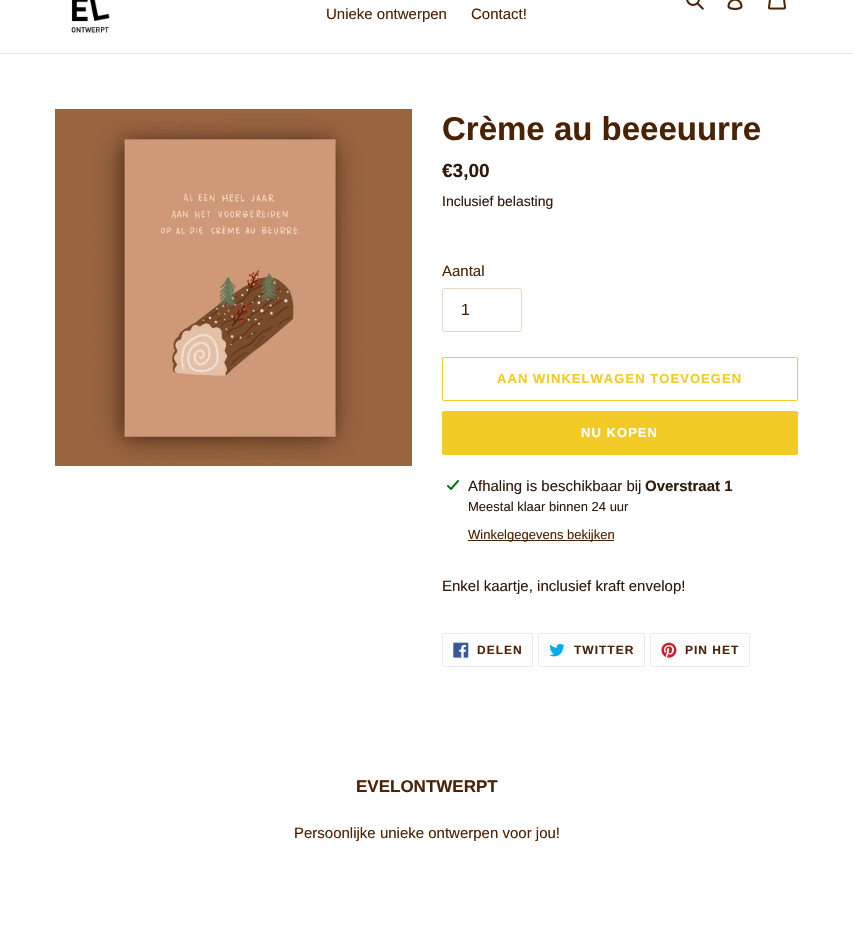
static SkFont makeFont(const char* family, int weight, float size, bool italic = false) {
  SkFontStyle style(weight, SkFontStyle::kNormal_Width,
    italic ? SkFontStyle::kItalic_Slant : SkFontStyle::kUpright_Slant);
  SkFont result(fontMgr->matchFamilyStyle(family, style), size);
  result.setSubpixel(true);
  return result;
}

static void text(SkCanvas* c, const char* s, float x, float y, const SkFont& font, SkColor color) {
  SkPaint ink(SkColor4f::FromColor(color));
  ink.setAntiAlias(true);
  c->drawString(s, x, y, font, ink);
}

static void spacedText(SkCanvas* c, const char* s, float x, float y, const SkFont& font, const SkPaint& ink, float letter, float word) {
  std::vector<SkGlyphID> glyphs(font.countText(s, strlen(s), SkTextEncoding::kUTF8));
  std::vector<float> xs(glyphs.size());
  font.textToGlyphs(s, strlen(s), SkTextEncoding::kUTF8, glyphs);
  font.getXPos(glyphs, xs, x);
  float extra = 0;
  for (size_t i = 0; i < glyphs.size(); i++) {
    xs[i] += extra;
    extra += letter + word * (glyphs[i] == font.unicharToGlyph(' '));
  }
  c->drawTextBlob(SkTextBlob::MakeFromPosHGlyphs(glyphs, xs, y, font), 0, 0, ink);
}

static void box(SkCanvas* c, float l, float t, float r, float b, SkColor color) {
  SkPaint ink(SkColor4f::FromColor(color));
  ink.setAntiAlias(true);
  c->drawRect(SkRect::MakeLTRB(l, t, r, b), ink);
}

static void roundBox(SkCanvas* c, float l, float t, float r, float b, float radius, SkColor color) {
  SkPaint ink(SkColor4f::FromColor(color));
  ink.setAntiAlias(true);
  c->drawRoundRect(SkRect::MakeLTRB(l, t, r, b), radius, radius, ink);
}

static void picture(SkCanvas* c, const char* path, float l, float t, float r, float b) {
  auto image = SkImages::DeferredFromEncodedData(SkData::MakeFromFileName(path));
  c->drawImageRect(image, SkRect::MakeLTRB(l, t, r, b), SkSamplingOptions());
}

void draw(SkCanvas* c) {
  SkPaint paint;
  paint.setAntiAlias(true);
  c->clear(0xffffffff);
  box(c, 0, 53, 853, 54, 0xffebebeb);
  picture(c, "img_01.png", 71, 0, 110, 33);
  picture(c, "img_02.png", 686, 0, 704, 10);
  picture(c, "img_03.png", 727, 0, 743, 10);
  picture(c, "img_04.png", 768, 0, 786, 10);
  SkFont face1 = makeFont("Liberation Sans", 400, 15);
  text(c, "Unieke ontwerpen", 326, 19, face1, 0xff4b2204);
  text(c, "Contact!", 471, 19, face1, 0xff4b2204);
  picture(c, "img_05.png", 55, 109, 412, 466);
  SkFont face2 = makeFont("Liberation Sans", 700, 33);
  text(c, "Crème au beeeuurre", 442, 140, face2, 0xff4b2204);
  SkFont face3 = makeFont("Liberation Sans", 700, 19);
  text(c, "€3,00", 442, 177, face3, 0xff2e190a);
  SkFont face4 = makeFont("Liberation Sans", 400, 14);
  text(c, "Inclusief belasting", 442, 206, face4, 0xff2e190a);
  text(c, "Aantal", 442, 276, face1, 0xff4b2204);
  paint.setStyle(SkPaint::kStroke_Style);
  paint.setStrokeWidth(1);
  paint.setColor(0xffead6c7);
  c->drawRoundRect(SkRect::MakeLTRB(442.5f, 288.5f, 521.5f, 331.5f), 1.5f, 1.5f, paint);
  SkFont face5 = makeFont("Liberation Sans", 400, 16);
  text(c, "1", 461, 315, face5, 0xff4b2204);
  paint.setColor(0xfff2cb27);
  c->drawRoundRect(SkRect::MakeLTRB(442.5f, 357.5f, 797.5f, 400.5f), 1.5f, 1.5f, paint);
  SkFont face6 = makeFont("Liberation Sans", 700, 13);
  paint.setStyle(SkPaint::kFill_Style);
  spacedText(c, "AAN WINKELWAGEN TOEVOEGEN", 497, 383, face6, paint, 1.05f, 0);
  roundBox(c, 442, 411, 798, 455, 2, 0xfff2cb27);
  paint.setColor(0xffffffff);
  spacedText(c, "NU KOPEN", 581, 437, face6, paint, 1.05f, 0);
  picture(c, "img_06.png", 447, 480, 459, 490);
  text(c, "Afhaling is beschikbaar bij", 468, 491, face1, 0xff2e190a);
  SkFont face7 = makeFont("Liberation Sans", 700, 15);
  text(c, "Overstraat 1", 645, 491, face7, 0xff2e190a);
  SkFont face8 = makeFont("Liberation Sans", 400, 13);
  text(c, "Meestal klaar binnen 24 uur", 468, 511, face8, 0xff2e190a);
  box(c, 468, 540, 614, 541, 0xff4b2204);
  text(c, "Winkelgegevens bekijken", 468, 539, face8, 0xff4b2204);
  text(c, "Enkel kaartje, inclusief kraft envelop!", 442, 591, face1, 0xff2e190a);
  paint.setStyle(SkPaint::kStroke_Style);
  paint.setColor(0xffebebeb);
  c->drawRoundRect(SkRect::MakeLTRB(442.5f, 633.5f, 532.5f, 666.5f), 1.5f, 1.5f, paint);
  picture(c, "img_07.png", 453, 642, 469, 658);
  SkFont face9 = makeFont("Liberation Sans", 700, 12);
  paint.setStyle(SkPaint::kFill_Style);
  paint.setColor(0xff4b2204);
  spacedText(c, "DELEN", 477, 654, face9, paint, 1, 0);
  paint.setStyle(SkPaint::kStroke_Style);
  paint.setColor(0xffebebeb);
  c->drawRoundRect(SkRect::MakeLTRB(538.5f, 633.5f, 644.5f, 666.5f), 1.5f, 1.5f, paint);
  picture(c, "img_08.png", 549, 643, 565, 657);
  paint.setStyle(SkPaint::kFill_Style);
  paint.setColor(0xff4b2204);
  spacedText(c, "TWITTER", 574, 654, face9, paint, 1, 0);
  paint.setStyle(SkPaint::kStroke_Style);
  paint.setColor(0xffebebeb);
  c->drawRoundRect(SkRect::MakeLTRB(650.5f, 633.5f, 749.5f, 666.5f), 1.5f, 1.5f, paint);
  picture(c, "img_09.png", 661, 642, 677, 658);
  paint.setStyle(SkPaint::kFill_Style);
  paint.setColor(0xff4b2204);
  spacedText(c, "PIN HET", 685, 654, face9, paint, 1, 0);
  SkFont face10 = makeFont("Liberation Sans", 700, 17);
  text(c, "EVELONTWERPT", 356, 792, face10, 0xff4b2204);
  text(c, "Persoonlijke unieke ontwerpen voor jou!", 294, 838, face1, 0xff4b2204);
}
